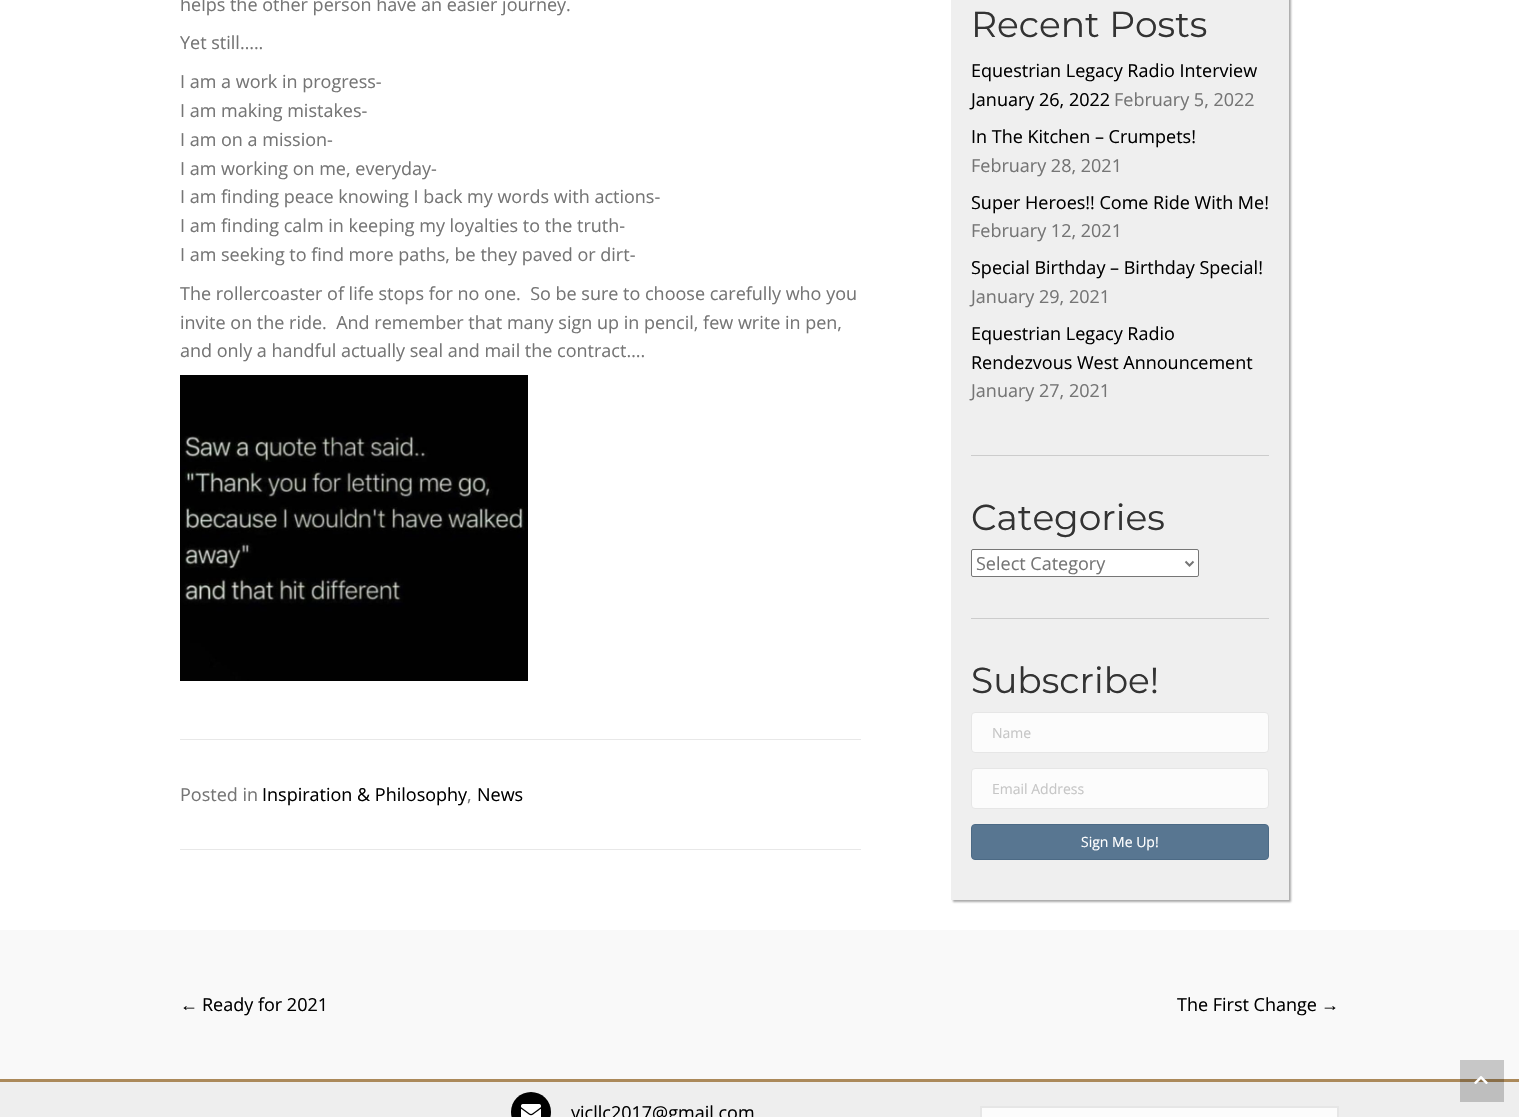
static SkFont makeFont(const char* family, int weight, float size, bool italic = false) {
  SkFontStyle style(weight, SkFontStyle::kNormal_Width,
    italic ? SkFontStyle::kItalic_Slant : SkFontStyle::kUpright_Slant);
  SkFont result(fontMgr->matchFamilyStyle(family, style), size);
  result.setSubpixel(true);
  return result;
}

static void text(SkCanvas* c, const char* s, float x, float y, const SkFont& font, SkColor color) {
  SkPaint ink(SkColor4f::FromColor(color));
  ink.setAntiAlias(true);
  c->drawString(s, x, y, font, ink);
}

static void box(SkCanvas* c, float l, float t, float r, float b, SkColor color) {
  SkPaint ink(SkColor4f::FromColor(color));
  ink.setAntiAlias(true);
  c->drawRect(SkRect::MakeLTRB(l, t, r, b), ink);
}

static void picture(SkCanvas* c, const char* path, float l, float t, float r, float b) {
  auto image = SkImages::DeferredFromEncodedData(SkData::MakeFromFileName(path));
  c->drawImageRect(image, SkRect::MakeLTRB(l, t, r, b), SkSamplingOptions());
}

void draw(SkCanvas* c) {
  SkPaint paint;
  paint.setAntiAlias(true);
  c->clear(0xffffffff);
  SkFont face1 = makeFont("Open Sans", 400, 18);
  text(c, "helps the other person have an easier journey.", 180, 11, face1, 0xff757575);
  text(c, "Yet still…..", 180, 49, face1, 0xff757575);
  text(c, "I am a work in progress-", 180, 88, face1, 0xff757575);
  text(c, "I am making mistakes-", 180, 117, face1, 0xff757575);
  text(c, "I am on a mission-", 180, 146, face1, 0xff757575);
  text(c, "I am working on me, everyday-", 180, 175, face1, 0xff757575);
  text(c, "I am finding peace knowing I back my words with actions-", 180, 203, face1, 0xff757575);
  text(c, "I am finding calm in keeping my loyalties to the truth-", 180, 232, face1, 0xff757575);
  text(c, "I am seeking to find more paths, be they paved or dirt-", 180, 261, face1, 0xff757575);
  text(c, "The rollercoaster of life stops for no one.  So be sure to choose carefully who you", 180, 300, face1, 0xff757575);
  text(c, "invite on the ride.  And remember that many sign up in pencil, few write in pen,", 180, 329, face1, 0xff757575);
  text(c, "and only a handful actually seal and mail the contract….", 180, 357, face1, 0xff757575);
  picture(c, "img_01.png", 180, 375, 528, 681);
  box(c, 180, 739, 861, 740, 0xffe8e8e8);
  text(c, "Posted in", 180, 801, face1, 0xff757575);
  text(c, "Inspiration & Philosophy", 262, 801, face1, 0xff000000);
  text(c, ",", 467, 801, face1, 0xff757575);
  text(c, "News", 477, 801, face1, 0xff000000);
  box(c, 180, 849, 861, 850, 0xffe8e8e8);
  paint.setColor(0x80515151);
  paint.setMaskFilter(SkMaskFilter::MakeBlur(kNormal_SkBlurStyle, 1));
  c->drawRect(SkRect::MakeLTRB(953, -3, 1291, 902), paint);
  paint.setMaskFilter(nullptr);
  box(c, 951, 0, 1289, 900, 0xffefefef);
  SkFont face2 = makeFont("Montserrat", 100, 36);
  text(c, "Recent Posts", 971, 37, face2, 0xff333333);
  text(c, "Equestrian Legacy Radio Interview", 971, 77, face1, 0xff000000);
  text(c, "January 26, 2022", 971, 106, face1, 0xff000000);
  text(c, "February 5, 2022", 1114, 106, face1, 0xff757575);
  text(c, "In The Kitchen – Crumpets!", 971, 143, face1, 0xff000000);
  text(c, "February 28, 2021", 971, 172, face1, 0xff757575);
  text(c, "Super Heroes!! Come Ride With Me!", 971, 209, face1, 0xff000000);
  text(c, "February 12, 2021", 971, 237, face1, 0xff757575);
  text(c, "Special Birthday – Birthday Special!", 971, 274, face1, 0xff000000);
  text(c, "January 29, 2021", 971, 303, face1, 0xff757575);
  text(c, "Equestrian Legacy Radio", 971, 340, face1, 0xff000000);
  text(c, "Rendezvous West Announcement", 971, 369, face1, 0xff000000);
  text(c, "January 27, 2021", 971, 397, face1, 0xff757575);
  box(c, 971, 455, 1269, 456, 0xffcccccc);
  text(c, "Categories", 971, 530, face2, 0xff333333);
  paint.setColor(0xffffffff);
  c->drawRoundRect(SkRect::MakeLTRB(971.5f, 549.5f, 1198.5f, 576.5f), 1.5f, 1.5f, paint);
  paint.setStyle(SkPaint::kStroke_Style);
  paint.setStrokeWidth(1);
  paint.setColor(0xff767676);
  c->drawRoundRect(SkRect::MakeLTRB(971.5f, 549.5f, 1198.5f, 576.5f), 1.5f, 1.5f, paint);
  paint.setStrokeWidth(2);
  paint.setColor(0xff757575);
  c->drawPath(SkPathBuilder().moveTo(1185.5f, 561.5f).lineTo(1189.5f, 565.5f).lineTo(1193.5f, 561.5f).detach(), paint);
  text(c, "Select Category", 976, 570, face1, 0xff757575);
  box(c, 971, 618, 1269, 619, 0xffcccccc);
  text(c, "Subscribe!", 971, 693, face2, 0xff333333);
  paint.setStyle(SkPaint::kFill_Style);
  paint.setColor(0xfffcfcfc);
  c->drawRoundRect(SkRect::MakeLTRB(971.5f, 712.5f, 1268.5f, 752.5f), 3.5f, 3.5f, paint);
  paint.setStyle(SkPaint::kStroke_Style);
  paint.setStrokeWidth(1);
  paint.setColor(0xffe6e6e6);
  c->drawRoundRect(SkRect::MakeLTRB(971.5f, 712.5f, 1268.5f, 752.5f), 3.5f, 3.5f, paint);
  SkFont face3 = makeFont("Open Sans", 400, 14);
  text(c, "Name", 992, 738, face3, 0xffc6c6c6);
  paint.setStyle(SkPaint::kFill_Style);
  paint.setColor(0xfffcfcfc);
  c->drawRoundRect(SkRect::MakeLTRB(971.5f, 768.5f, 1268.5f, 808.5f), 3.5f, 3.5f, paint);
  paint.setStyle(SkPaint::kStroke_Style);
  paint.setColor(0xffe6e6e6);
  c->drawRoundRect(SkRect::MakeLTRB(971.5f, 768.5f, 1268.5f, 808.5f), 3.5f, 3.5f, paint);
  text(c, "Email Address", 992, 794, face3, 0xffc6c6c6);
  paint.setStyle(SkPaint::kFill_Style);
  paint.setColor(0xff587691);
  c->drawRoundRect(SkRect::MakeLTRB(971.5f, 824.5f, 1268.5f, 859.5f), 3.5f, 3.5f, paint);
  paint.setStyle(SkPaint::kStroke_Style);
  paint.setColor(0xff4c6a85);
  c->drawRoundRect(SkRect::MakeLTRB(971.5f, 824.5f, 1268.5f, 859.5f), 3.5f, 3.5f, paint);
  text(c, "Sign Me Up!", 1081, 847, face3, 0xffffffff);
  box(c, 0, 930, 1519, 1079, 0xfff9f9f9);
  box(c, 1460, 1060, 1504, 1079, 0xffc7c7c7);
  SkFont face4 = makeFont("Liberation Sans", 400, 18);
  text(c, "←", 180, 1011, face4, 0xff000000);
  text(c, "Ready for 2021", 202, 1011, face1, 0xff000000);
  text(c, "The First Change", 1177, 1011, face1, 0xff000000);
  text(c, "→", 1321, 1011, face4, 0xff000000);
  box(c, 0, 1082, 1519, 1117, 0xffeeeeee);
  box(c, 1460, 1082, 1504, 1102, 0xffbebebe);
  box(c, 0, 1079, 1519, 1082, 0xffab895a);
  box(c, 1460, 1079, 1504, 1082, 0xff896e48);
  paint.setStyle(SkPaint::kFill_Style);
  paint.setColor(0xff000000);
  c->drawCircle(531, 1112, 20, paint);
  picture(c, "img_02.png", 521, 1104, 541, 1117);
  text(c, "yicllc2017@gmail.com", 571, 1119, face1, 0xff000000);
  paint.setColor(0xfffcfcfc);
  c->drawRect(SkRect::MakeLTRB(981, 1107, 1338, 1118), paint);
  paint.setStyle(SkPaint::kStroke_Style);
  paint.setStrokeWidth(2);
  paint.setColor(0xffe6e6e6);
  c->drawRect(SkRect::MakeLTRB(981, 1107, 1338, 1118), paint);
  picture(c, "img_03.png", 1474, 1076, 1488, 1084);
}
